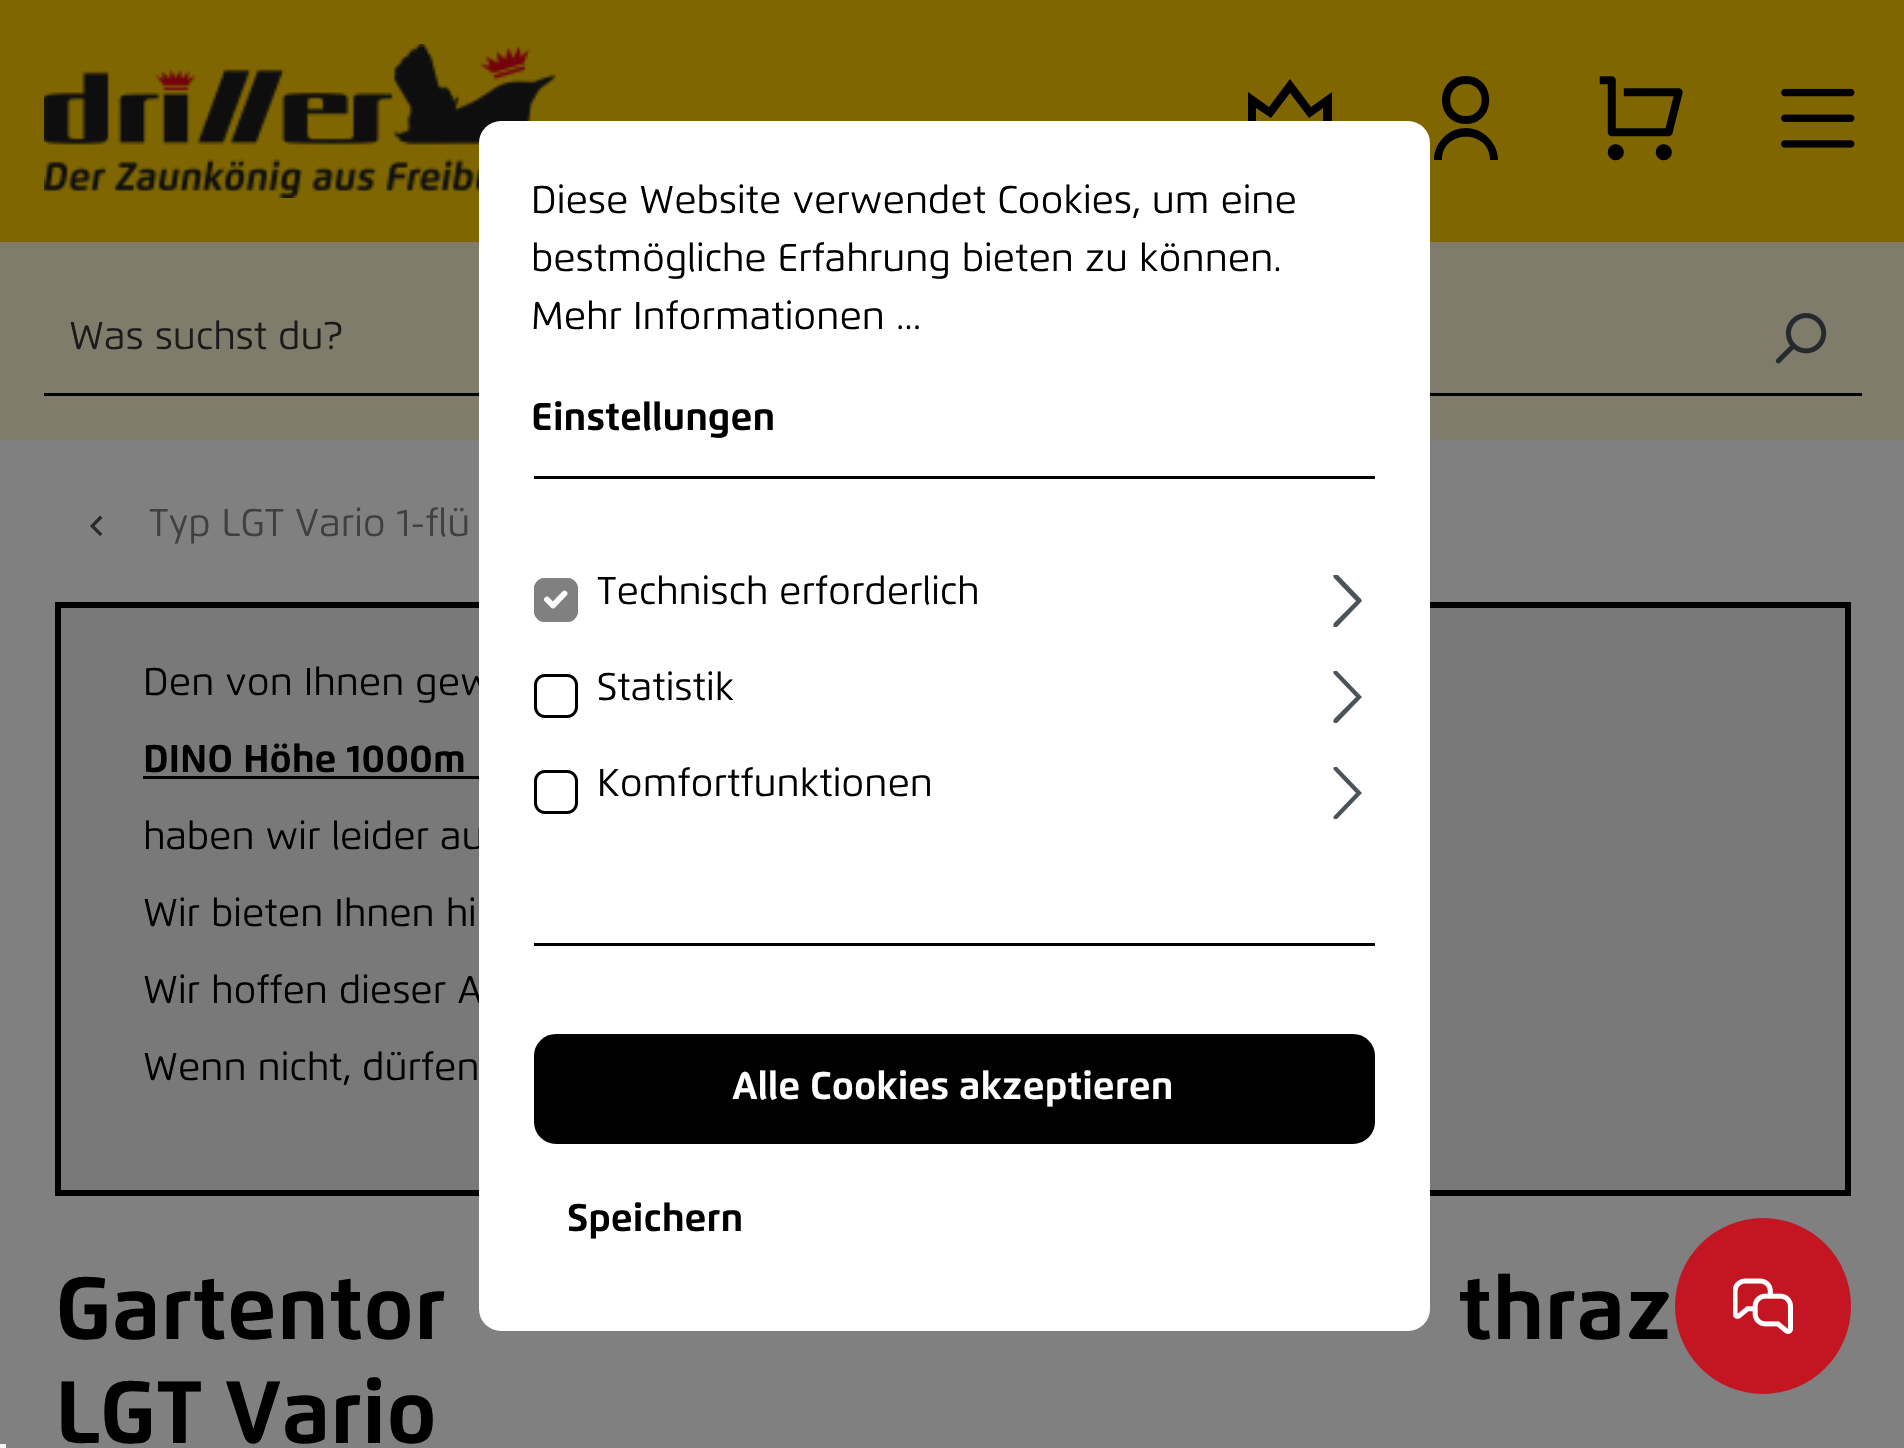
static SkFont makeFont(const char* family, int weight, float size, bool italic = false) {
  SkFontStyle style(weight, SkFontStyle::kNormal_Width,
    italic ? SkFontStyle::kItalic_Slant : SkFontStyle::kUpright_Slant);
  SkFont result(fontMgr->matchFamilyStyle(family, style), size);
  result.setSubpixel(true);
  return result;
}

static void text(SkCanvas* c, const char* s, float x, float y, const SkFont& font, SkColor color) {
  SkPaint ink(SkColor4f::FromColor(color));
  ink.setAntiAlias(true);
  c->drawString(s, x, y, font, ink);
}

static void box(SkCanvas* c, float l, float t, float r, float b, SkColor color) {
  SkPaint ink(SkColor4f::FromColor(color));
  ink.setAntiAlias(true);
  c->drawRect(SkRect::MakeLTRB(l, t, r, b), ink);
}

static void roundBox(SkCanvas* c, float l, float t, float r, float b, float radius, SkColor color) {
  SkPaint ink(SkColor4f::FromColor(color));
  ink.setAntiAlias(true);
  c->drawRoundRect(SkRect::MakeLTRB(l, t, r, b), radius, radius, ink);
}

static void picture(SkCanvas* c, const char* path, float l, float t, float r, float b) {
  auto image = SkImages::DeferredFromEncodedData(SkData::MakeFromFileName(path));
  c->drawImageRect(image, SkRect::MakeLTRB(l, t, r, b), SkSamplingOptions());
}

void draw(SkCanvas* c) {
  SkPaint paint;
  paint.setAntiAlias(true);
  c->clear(0xff808080);
  box(c, 0, 0, 1904, 242, 0xff7f6601);
  picture(c, "img_01.png", 44, 44, 556, 198);
  paint.setColor(0xff000000);
  c->drawPath(SkPathBuilder().moveTo(1248, 151).lineTo(1332, 151).lineTo(1332, 159).lineTo(1248, 159).close().moveTo(1248, 92).lineTo(1269, 107).lineTo(1290, 79).lineTo(1311, 107).lineTo(1332, 92).lineTo(1332, 142).lineTo(1248, 142).close().moveTo(1256, 108).lineTo(1256, 134).lineTo(1323, 134).lineTo(1323, 108).lineTo(1309, 118).lineTo(1290, 93).lineTo(1271, 118).close().detach(), paint);
  c->drawPath(SkPathBuilder().moveTo(1434, 160).cubicTo(1434, 143, 1448, 128, 1466, 128).cubicTo(1483, 128, 1498, 143, 1498, 160).lineTo(1490, 160).cubicTo(1490, 129, 1442, 129, 1442, 160).close().moveTo(1466, 124).cubicTo(1434, 124, 1434, 76, 1466, 76).cubicTo(1497, 76, 1497, 124, 1466, 124).close().moveTo(1466, 116).cubicTo(1487, 116, 1487, 84, 1466, 84).cubicTo(1445, 84, 1445, 116, 1466, 116).close().detach(), paint);
  picture(c, "img_02.png", 1599, 76, 1683, 161);
  picture(c, "img_03.png", 1781, 88, 1855, 148);
  box(c, 0, 242, 1904, 440, 0xff807c6b);
  box(c, 44, 393, 1862, 396, 0xff000000);
  SkFont face1 = makeFont("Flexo", 400, 38.5f);
  text(c, "Was suchst du?", 69, 349, face1, 0xff1a1a1a);
  picture(c, "img_04.png", 1775, 313, 1827, 364);
  paint.setColor(0xff797979);
  c->drawRect(SkRect::MakeLTRB(58, 605, 1848, 1193), paint);
  paint.setStyle(SkPaint::kStroke_Style);
  paint.setStrokeWidth(6);
  paint.setColor(0xff000000);
  c->drawRect(SkRect::MakeLTRB(58, 605, 1848, 1193), paint);
  text(c, "Den von Ihnen gew", 143, 695, face1, 0xff000000);
  text(c, "haben wir leider au", 143, 849, face1, 0xff000000);
  text(c, "Wir hoffen dieser A", 143, 1003, face1, 0xff000000);
  roundBox(c, 479, 121, 1430, 1331, 22, 0xffffffff);
  box(c, 534, 476, 1375, 479, 0xff000000);
  text(c, "Diese Website verwendet Cookies, um eine", 531, 213, face1, 0xff000000);
  text(c, "bestmögliche Erfahrung bieten zu können.", 531, 271, face1, 0xff000000);
  text(c, "Mehr Informationen ...", 531, 329, face1, 0xff000000);
  SkFont face2 = makeFont("Flexo", 700, 38.5f);
  text(c, "Einstellungen", 531, 430, face2, 0xff000000);
  box(c, 534, 943, 1375, 946, 0xff000000);
  roundBox(c, 534, 578, 578, 622, 11, 0xff808080);
  paint.setStrokeWidth(5.8f);
  paint.setStrokeCap(SkPaint::kRound_Cap);
  paint.setStrokeJoin(SkPaint::kRound_Join);
  paint.setColor(0xffffffff);
  c->drawPath(SkPathBuilder().moveTo(547, 599.5f).lineTo(553, 605.5f).lineTo(564.5f, 593.5f).detach(), paint);
  paint.setStrokeWidth(3);
  paint.setStrokeCap(SkPaint::kButt_Cap);
  paint.setStrokeJoin(SkPaint::kMiter_Join);
  paint.setColor(0xff808080);
  c->drawRoundRect(SkRect::MakeLTRB(535.5f, 579.5f, 576.5f, 620.5f), 9.5f, 9.5f, paint);
  text(c, "Technisch erforderlich", 597, 604, face1, 0xff000000);
  c->save();
  c->clipRect(SkRect::MakeLTRB(1323, 575, 1375, 627));
  paint.setStyle(SkPaint::kFill_Style);
  paint.setColor(0xff4a545b);
  c->drawPath(SkPathBuilder(SkPathFillType::kEvenOdd).moveTo(1356, 601).lineTo(1334, 623).cubicTo(1333, 624, 1333, 627, 1335, 627).lineTo(1337, 627).lineTo(1361, 602).lineTo(1362, 601).lineTo(1361, 599).lineTo(1337, 574).lineTo(1335, 574).cubicTo(1333, 574, 1333, 577, 1334, 578).close().detach(), paint);
  c->restore();
  paint.setStyle(SkPaint::kStroke_Style);
  paint.setColor(0xff000000);
  c->drawRoundRect(SkRect::MakeLTRB(535.5f, 675.5f, 576.5f, 716.5f), 9.5f, 9.5f, paint);
  text(c, "Statistik", 597, 700, face1, 0xff000000);
  c->save();
  c->clipRect(SkRect::MakeLTRB(1323, 671, 1375, 723));
  paint.setStyle(SkPaint::kFill_Style);
  paint.setColor(0xff4a545b);
  c->drawPath(SkPathBuilder(SkPathFillType::kEvenOdd).moveTo(1356, 697).lineTo(1334, 719).cubicTo(1333, 721, 1333, 723, 1335, 723).lineTo(1337, 723).lineTo(1361, 698).lineTo(1362, 697).lineTo(1361, 696).lineTo(1337, 671).lineTo(1335, 670).cubicTo(1333, 671, 1333, 673, 1334, 674).close().detach(), paint);
  c->restore();
  paint.setStyle(SkPaint::kStroke_Style);
  paint.setColor(0xff000000);
  c->drawRoundRect(SkRect::MakeLTRB(535.5f, 771.5f, 576.5f, 812.5f), 9.5f, 9.5f, paint);
  text(c, "Komfortfunktionen", 597, 796, face1, 0xff000000);
  paint.setStyle(SkPaint::kFill_Style);
  paint.setColor(0xff4a545b);
  c->drawPath(SkPathBuilder(SkPathFillType::kEvenOdd).moveTo(1356, 793).lineTo(1334, 816).cubicTo(1333, 817, 1333, 819, 1335, 819).lineTo(1337, 819).lineTo(1361, 794).lineTo(1362, 793).lineTo(1361, 792).lineTo(1337, 767).lineTo(1335, 767).cubicTo(1333, 767, 1333, 769, 1334, 770).close().detach(), paint);
  paint.setColor(0xff000000);
  c->drawRoundRect(SkRect::MakeLTRB(535.5f, 1035.5f, 1373.5f, 1142.5f), 20.5f, 20.5f, paint);
  paint.setStyle(SkPaint::kStroke_Style);
  c->drawRoundRect(SkRect::MakeLTRB(535.5f, 1035.5f, 1373.5f, 1142.5f), 20.5f, 20.5f, paint);
  text(c, "Alle Cookies akzeptieren", 732, 1099, face2, 0xffffffff);
  text(c, "Speichern", 567, 1231, face2, 0xff000000);
  paint.setStyle(SkPaint::kFill_Style);
  paint.setColor(0xff252a2e);
  c->drawPath(SkPathBuilder().moveTo(94.5f, 526).lineTo(102.5f, 534).lineTo(100, 536).lineTo(90, 526).lineTo(100, 515.5f).lineTo(102.5f, 518).close().detach(), paint);
  text(c, "Typ LGT Vario 1-flü", 149, 536, face1, 0xff404040);
  text(c, "DINO Höhe 1000m", 143, 772, face2, 0xff000000);
  box(c, 143, 776, 479, 779, 0xff000000);
  text(c, "Wir bieten Ihnen hi", 143, 926, face1, 0xff000000);
  text(c, "Wenn nicht, dürfen", 143, 1080, face1, 0xff000000);
  SkFont face3 = makeFont("Flexo", 700, 88);
  text(c, "Gartentor", 55, 1339, face3, 0xff000000);
  text(c, "thraz", 1458, 1339, face3, 0xff000000);
  text(c, "LGT Vario", 55, 1443, face3, 0xff000000);
  paint.setColor(0xffc31622);
  c->drawCircle(1763, 1306, 88, paint);
  picture(c, "img_05.png", 1733, 1278, 1793, 1334);
  box(c, 0, 1444, 6, 1448, 0xfff5f5f5);
}
